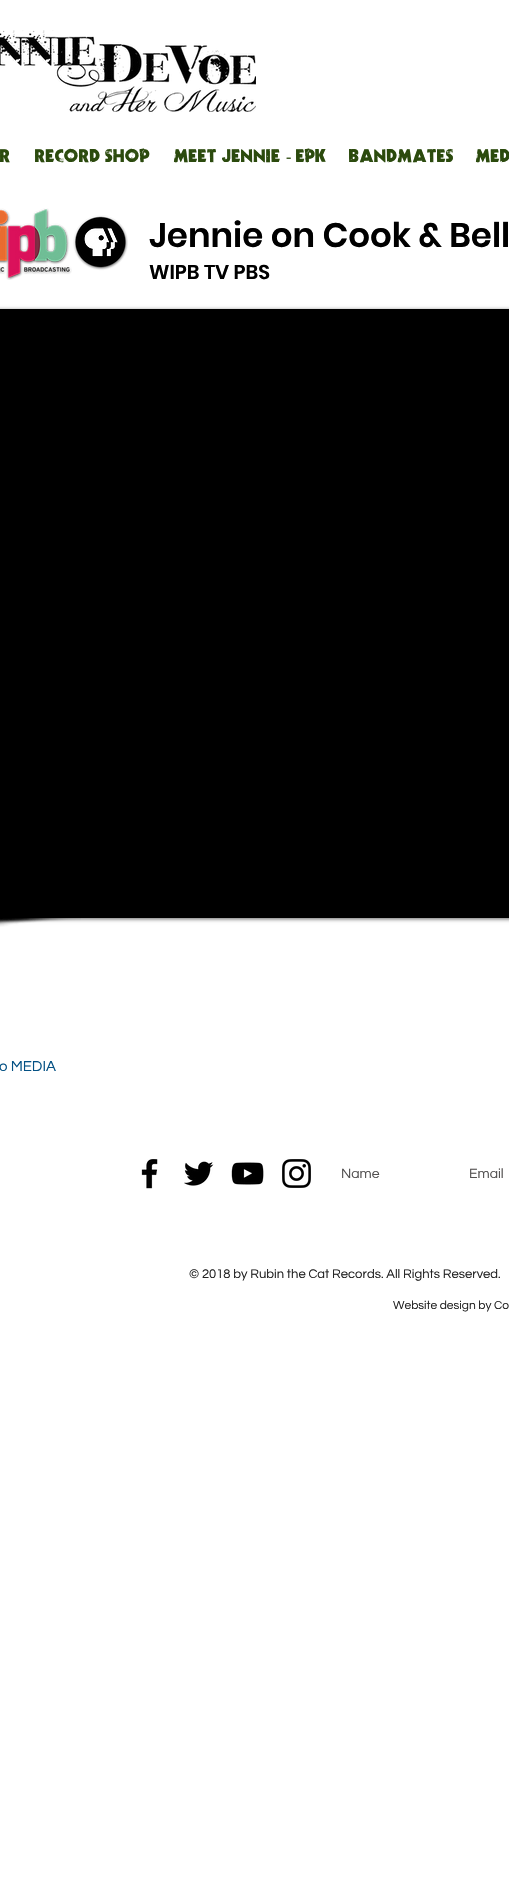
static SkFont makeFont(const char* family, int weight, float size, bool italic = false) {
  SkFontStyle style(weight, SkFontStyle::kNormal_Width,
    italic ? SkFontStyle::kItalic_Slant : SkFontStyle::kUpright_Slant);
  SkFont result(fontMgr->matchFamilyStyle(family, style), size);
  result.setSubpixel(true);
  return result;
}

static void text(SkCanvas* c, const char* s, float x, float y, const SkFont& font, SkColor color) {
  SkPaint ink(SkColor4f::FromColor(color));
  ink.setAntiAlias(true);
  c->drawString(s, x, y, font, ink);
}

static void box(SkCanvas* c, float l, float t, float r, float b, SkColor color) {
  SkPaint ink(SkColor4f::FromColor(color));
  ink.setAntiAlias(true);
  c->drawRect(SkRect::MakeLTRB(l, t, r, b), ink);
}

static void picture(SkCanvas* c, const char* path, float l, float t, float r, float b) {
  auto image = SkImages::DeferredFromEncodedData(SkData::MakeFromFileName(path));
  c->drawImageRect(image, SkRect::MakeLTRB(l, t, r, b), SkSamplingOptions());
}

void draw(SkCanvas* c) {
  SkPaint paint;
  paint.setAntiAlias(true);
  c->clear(0xffffffff);
  picture(c, "img_01.png", 0, 30, 256, 112);
  SkFont face1 = makeFont("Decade", 400, 16);
  text(c, "R", 0, 162, face1, 0xff2b4a0d);
  text(c, "RECORD SHOP", 35, 162, face1, 0xff2b4a0d);
  text(c, "MEET JENNIE", 174, 162, face1, 0xff2b4a0d);
  SkFont face2 = makeFont("Liberation Serif", 400, 16);
  text(c, "-", 286, 162, face2, 0xff2b4a0d);
  text(c, "EPK", 296, 162, face1, 0xff2b4a0d);
  text(c, "BANDMATES", 349, 162, face1, 0xff2b4a0d);
  text(c, "MED", 476, 162, face1, 0xff2b4a0d);
  picture(c, "img_02.png", 0, 208, 128, 280);
  SkFont face3 = makeFont("Poppins", 600, 34);
  text(c, "Jennie on Cook & Bell", 149, 247, face3, 0xff000000);
  SkFont face4 = makeFont("Poppins", 600, 20);
  text(c, "WIPB TV PBS", 149, 279, face4, 0xff000000);
  paint.setColor(0x99000000);
  paint.setMaskFilter(SkMaskFilter::MakeBlur(kNormal_SkBlurStyle, 2));
  c->drawRect(SkRect::MakeLTRB(-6, 310, 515, 919), paint);
  paint.setMaskFilter(nullptr);
  box(c, 0, 309, 509, 918, 0xff000000);
  picture(c, "img_03.png", 0, 918, 81, 927);
  SkFont face5 = makeFont("Questrial", 400, 15);
  text(c, "o MEDIA", -1, 1071, face5, 0xff045184);
  picture(c, "img_04.png", 141, 1159, 158, 1189);
  picture(c, "img_05.png", 184, 1161, 214, 1186);
  picture(c, "img_06.png", 231, 1162, 264, 1185);
  picture(c, "img_07.png", 282, 1159, 311, 1188);
  SkFont face6 = makeFont("Questrial", 400, 14);
  text(c, "Name", 341, 1178, face6, 0xff525050);
  text(c, "Email", 469, 1178, face6, 0xff525050);
  SkFont face7 = makeFont("Questrial", 400, 13);
  text(c, "© 2018 by Rubin the Cat Records. All Rights Reserved.", 189, 1278, face7, 0xff222222);
  SkFont face8 = makeFont("Questrial", 400, 12);
  text(c, "Website design by Co", 393, 1309, face8, 0xff222222);
}
